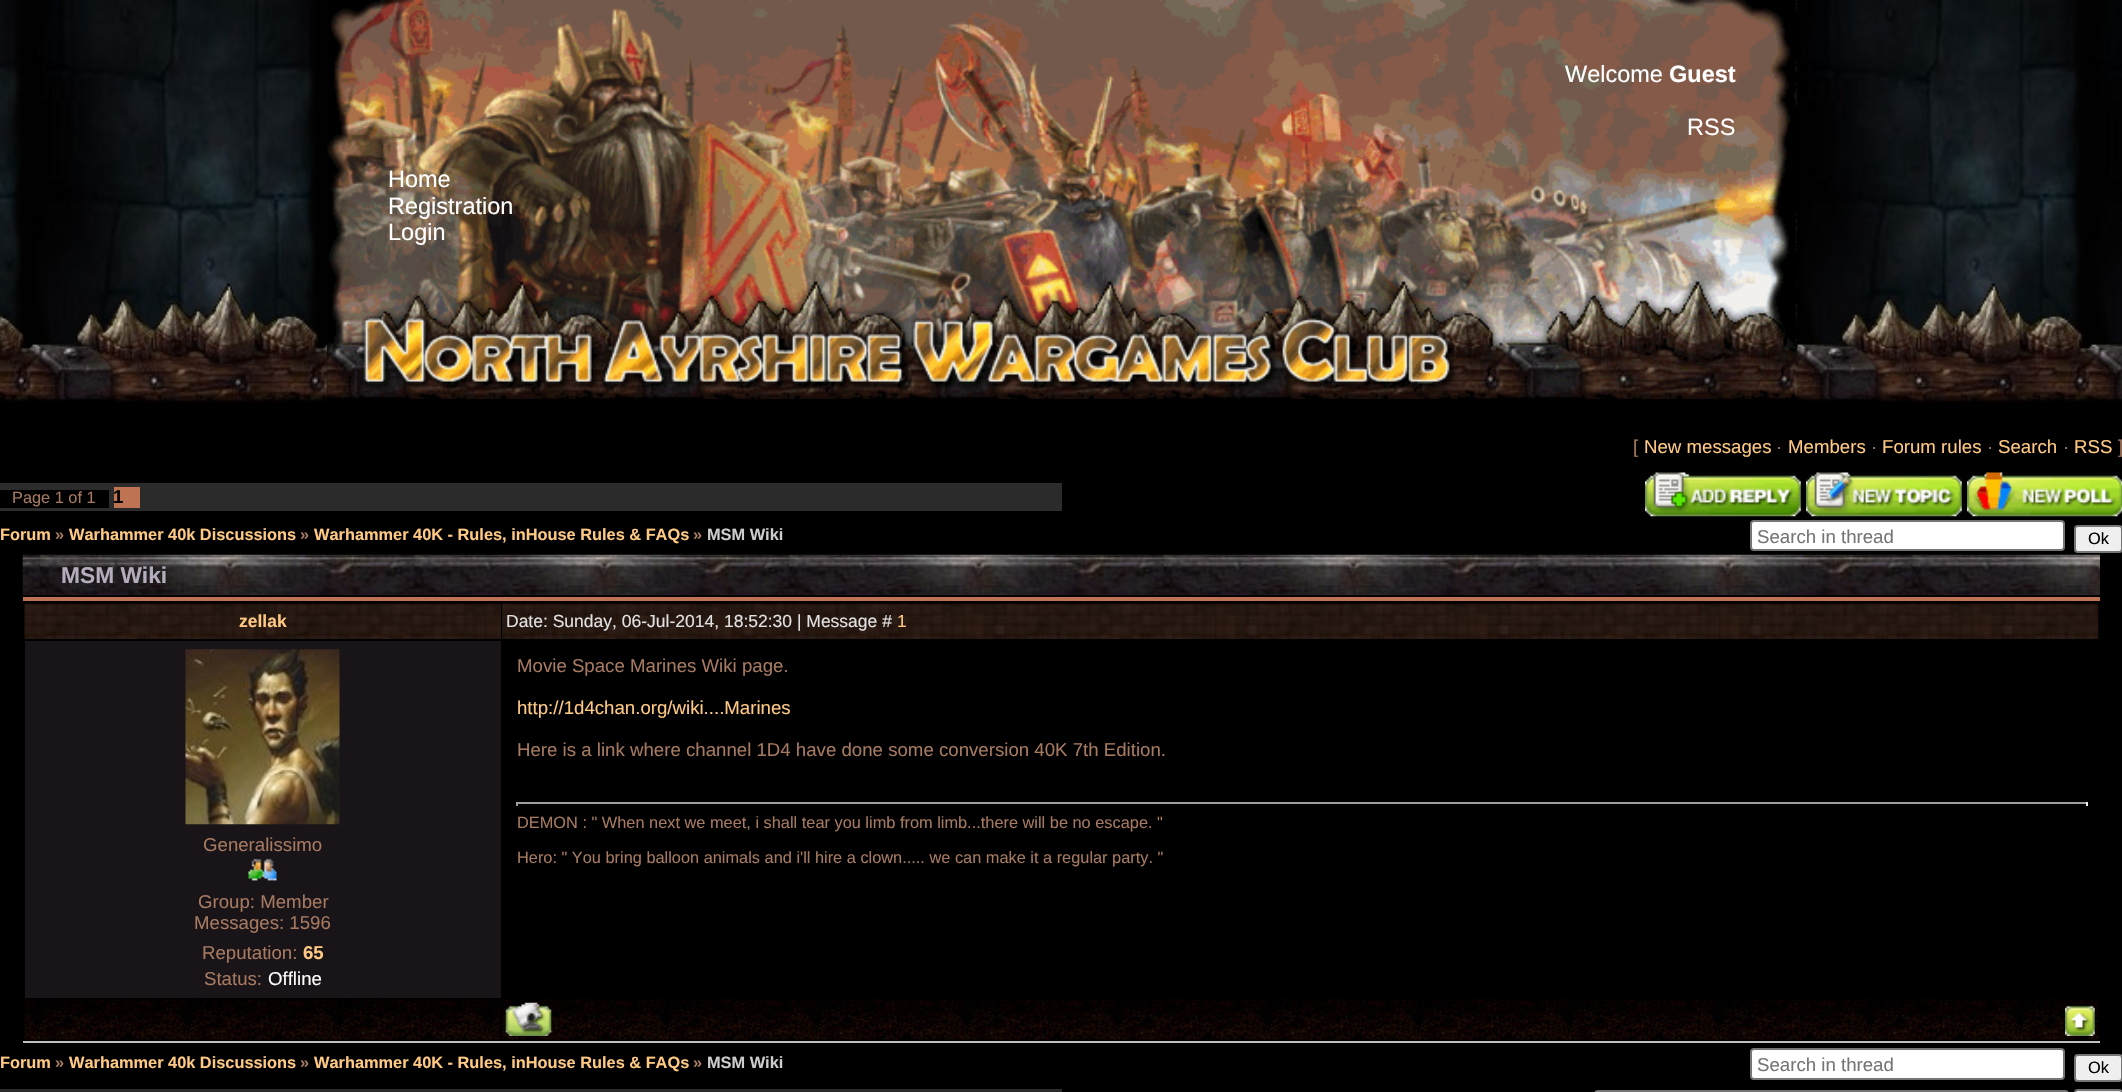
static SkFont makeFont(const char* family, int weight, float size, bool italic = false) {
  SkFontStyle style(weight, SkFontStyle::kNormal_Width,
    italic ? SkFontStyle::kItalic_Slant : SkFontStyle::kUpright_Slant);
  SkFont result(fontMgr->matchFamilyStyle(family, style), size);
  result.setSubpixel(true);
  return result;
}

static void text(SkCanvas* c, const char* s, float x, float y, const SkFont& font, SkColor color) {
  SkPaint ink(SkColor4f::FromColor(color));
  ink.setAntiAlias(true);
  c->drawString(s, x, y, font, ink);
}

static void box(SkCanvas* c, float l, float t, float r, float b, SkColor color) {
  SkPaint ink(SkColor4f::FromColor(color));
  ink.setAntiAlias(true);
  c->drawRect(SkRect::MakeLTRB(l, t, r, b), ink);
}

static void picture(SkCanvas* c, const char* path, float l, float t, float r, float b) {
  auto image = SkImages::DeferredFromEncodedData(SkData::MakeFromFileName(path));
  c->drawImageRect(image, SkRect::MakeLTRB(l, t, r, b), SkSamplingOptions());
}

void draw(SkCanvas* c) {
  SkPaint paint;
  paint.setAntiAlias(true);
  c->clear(0xff000000);
  picture(c, "img_01.png", 0, 0, 328, 403);
  picture(c, "img_02.png", 327, 0, 1798, 399);
  SkFont face1 = makeFont("Liberation Sans", 400, 23.5f);
  text(c, "Welcome", 1565, 82, face1, 0xffffffff);
  SkFont face2 = makeFont("Liberation Sans", 700, 23.5f);
  text(c, "Guest", 1669, 82, face2, 0xffffffff);
  text(c, "RSS", 1687, 135, face1, 0xffffffff);
  text(c, "Home", 388, 187, face1, 0xffffffff);
  text(c, "Registration", 388, 214, face1, 0xffffffff);
  text(c, "Login", 388, 240, face1, 0xffffffff);
  picture(c, "img_03.png", 1797, 0, 2122, 403);
  SkFont face3 = makeFont("Liberation Sans", 400, 18.65f);
  text(c, "[", 1633, 453, face3, 0xffa67961);
  text(c, "New messages", 1644, 453, face3, 0xffffc983);
  text(c, "·", 1776, 453, face3, 0xffa67961);
  text(c, "Members", 1788, 453, face3, 0xffffc983);
  text(c, "·", 1871, 453, face3, 0xffa67961);
  text(c, "Forum rules", 1882, 453, face3, 0xffffc983);
  text(c, "·", 1987, 453, face3, 0xffa67961);
  text(c, "Search", 1998, 453, face3, 0xffffc983);
  text(c, "·", 2063, 453, face3, 0xffa67961);
  text(c, "RSS", 2074, 453, face3, 0xffffc983);
  text(c, "]", 2118, 453, face3, 0xffa67961);
  box(c, 0, 483, 1062, 511, 0xff2b2b2b);
  box(c, 0, 490, 109, 508, 0xff000000);
  SkFont face4 = makeFont("Liberation Sans", 400, 16.35f);
  text(c, "Page 1 of 1", 12, 503, face4, 0xffa67961);
  box(c, 114, 487, 140, 508, 0xffbe7352);
  SkFont face5 = makeFont("Liberation Sans", 700, 18.65f);
  text(c, "1", 113, 503, face5, 0xff000000);
  picture(c, "img_04.png", 1645, 472, 1801, 517);
  picture(c, "img_05.png", 1806, 472, 1962, 517);
  picture(c, "img_06.png", 1967, 472, 2122, 517);
  SkFont face6 = makeFont("Liberation Sans", 700, 16.35f);
  text(c, "Forum", 0, 540, face6, 0xffffc983);
  text(c, "»", 55, 540, face6, 0xffa67961);
  text(c, "Warhammer 40k Discussions", 69, 540, face6, 0xffffc983);
  text(c, "»", 300, 540, face6, 0xffa67961);
  text(c, "Warhammer 40K - Rules, inHouse Rules & FAQs", 314, 540, face6, 0xffffc983);
  text(c, "»", 693, 540, face6, 0xffa67961);
  text(c, "MSM Wiki", 707, 540, face6, 0xffcccccc);
  paint.setColor(0xffffffff);
  c->drawRoundRect(SkRect::MakeLTRB(1751, 521, 2064, 550), 3, 3, paint);
  paint.setStyle(SkPaint::kStroke_Style);
  paint.setStrokeWidth(2);
  paint.setColor(0xff767676);
  c->drawRoundRect(SkRect::MakeLTRB(1751, 521, 2064, 550), 3, 3, paint);
  text(c, "Search in thread", 1757, 543, face3, 0xff757575);
  paint.setStyle(SkPaint::kFill_Style);
  paint.setColor(0xffefefef);
  c->drawRoundRect(SkRect::MakeLTRB(2075, 526, 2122, 552), 3, 3, paint);
  paint.setStyle(SkPaint::kStroke_Style);
  paint.setColor(0xff767676);
  c->drawRoundRect(SkRect::MakeLTRB(2075, 526, 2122, 552), 3, 3, paint);
  text(c, "Ok", 2088, 544, face4, 0xff000000);
  picture(c, "img_07.png", 22, 554, 2100, 595);
  SkFont face7 = makeFont("Liberation Sans", 700, 22.75f);
  text(c, "MSM Wiki", 61, 583, face7, 0xffb5adbc);
  box(c, 23, 597, 2100, 601, 0xffbe7352);
  box(c, 23, 1041, 2100, 1043, 0xffc0c0c0);
  box(c, 25, 604, 501, 639, 0xff241710);
  picture(c, "img_08.png", 24, 603, 501, 639);
  SkFont face8 = makeFont("Liberation Sans", 700, 17.5f);
  text(c, "zellak", 239, 627, face8, 0xffffc983);
  box(c, 502, 604, 2098, 639, 0xff241710);
  picture(c, "img_09.png", 502, 603, 2099, 639);
  SkFont face9 = makeFont("Liberation Sans", 400, 17.5f);
  text(c, "Date: Sunday, 06-Jul-2014, 18:52:30 | Message #", 506, 627, face9, 0xffe1e1e1);
  text(c, "1", 897, 627, face9, 0xffffc983);
  text(c, "Movie Space Marines Wiki page.", 517, 672, face3, 0xffa67961);
  text(c, "http://1d4chan.org/wiki....Marines", 517, 714, face3, 0xffffc983);
  text(c, "Here is a link where channel 1D4 have done some conversion 40K 7th Edition.", 517, 756, face3, 0xffa67961);
  box(c, 516, 802, 2088, 804, 0xff9f9f9f);
  box(c, 2086, 802, 2088, 806, 0xffeeeeee);
  box(c, 516, 802, 518, 806, 0xff9f9f9f);
  text(c, "DEMON : \" When next we meet, i shall tear you limb from limb...there will be no escape. \"", 517, 828, face4, 0xffa67961);
  text(c, "Hero: \" You bring balloon animals and i'll hire a clown..... we can make it a regular party. \"", 517, 863, face4, 0xffa67961);
  box(c, 25, 641, 501, 998, 0xff191418);
  picture(c, "img_10.png", 185, 649, 340, 825);
  text(c, "Generalissimo", 203, 851, face3, 0xffa67961);
  picture(c, "img_11.png", 248, 858, 277, 881);
  text(c, "Group: Member", 198, 908, face3, 0xffa67961);
  text(c, "Messages: 1596", 194, 929, face3, 0xffa67961);
  text(c, "Reputation:", 202, 959, face3, 0xffa67961);
  text(c, "65", 303, 959, face5, 0xffffc983);
  text(c, "Status:", 204, 985, face3, 0xffa67961);
  text(c, "Offline", 268, 985, face3, 0xffffffff);
  picture(c, "img_12.png", 24, 999, 501, 1040);
  picture(c, "img_13.png", 502, 999, 2099, 1040);
  picture(c, "img_14.png", 505, 1002, 552, 1036);
  picture(c, "img_15.png", 2065, 1005, 2095, 1036);
  text(c, "Forum", 0, 1068, face6, 0xffffc983);
  text(c, "»", 55, 1068, face6, 0xffa67961);
  text(c, "Warhammer 40k Discussions", 69, 1068, face6, 0xffffc983);
  text(c, "»", 300, 1068, face6, 0xffa67961);
  text(c, "Warhammer 40K - Rules, inHouse Rules & FAQs", 314, 1068, face6, 0xffffc983);
  text(c, "»", 693, 1068, face6, 0xffa67961);
  text(c, "MSM Wiki", 707, 1068, face6, 0xffcccccc);
  paint.setStyle(SkPaint::kFill_Style);
  paint.setColor(0xffffffff);
  c->drawRoundRect(SkRect::MakeLTRB(1751, 1049, 2064, 1079), 3, 3, paint);
  paint.setStyle(SkPaint::kStroke_Style);
  paint.setColor(0xff767676);
  c->drawRoundRect(SkRect::MakeLTRB(1751, 1049, 2064, 1079), 3, 3, paint);
  text(c, "Search in thread", 1757, 1071, face3, 0xff757575);
  paint.setStyle(SkPaint::kFill_Style);
  paint.setColor(0xffefefef);
  c->drawRoundRect(SkRect::MakeLTRB(2075, 1055, 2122, 1081), 3, 3, paint);
  paint.setStyle(SkPaint::kStroke_Style);
  paint.setColor(0xff767676);
  c->drawRoundRect(SkRect::MakeLTRB(2075, 1055, 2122, 1081), 3, 3, paint);
  text(c, "Ok", 2088, 1073, face4, 0xff000000);
  box(c, 0, 1089, 1062, 1092, 0xff2b2b2b);
  c->drawRoundRect(SkRect::MakeLTRB(1595, 1091, 2068, 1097), 3, 3, paint);
  paint.setStyle(SkPaint::kFill_Style);
  paint.setColor(0xffefefef);
  c->drawRoundRect(SkRect::MakeLTRB(2075, 1090, 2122, 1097), 3, 3, paint);
  paint.setStyle(SkPaint::kStroke_Style);
  paint.setColor(0xff767676);
  c->drawRoundRect(SkRect::MakeLTRB(2075, 1090, 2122, 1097), 3, 3, paint);
}
